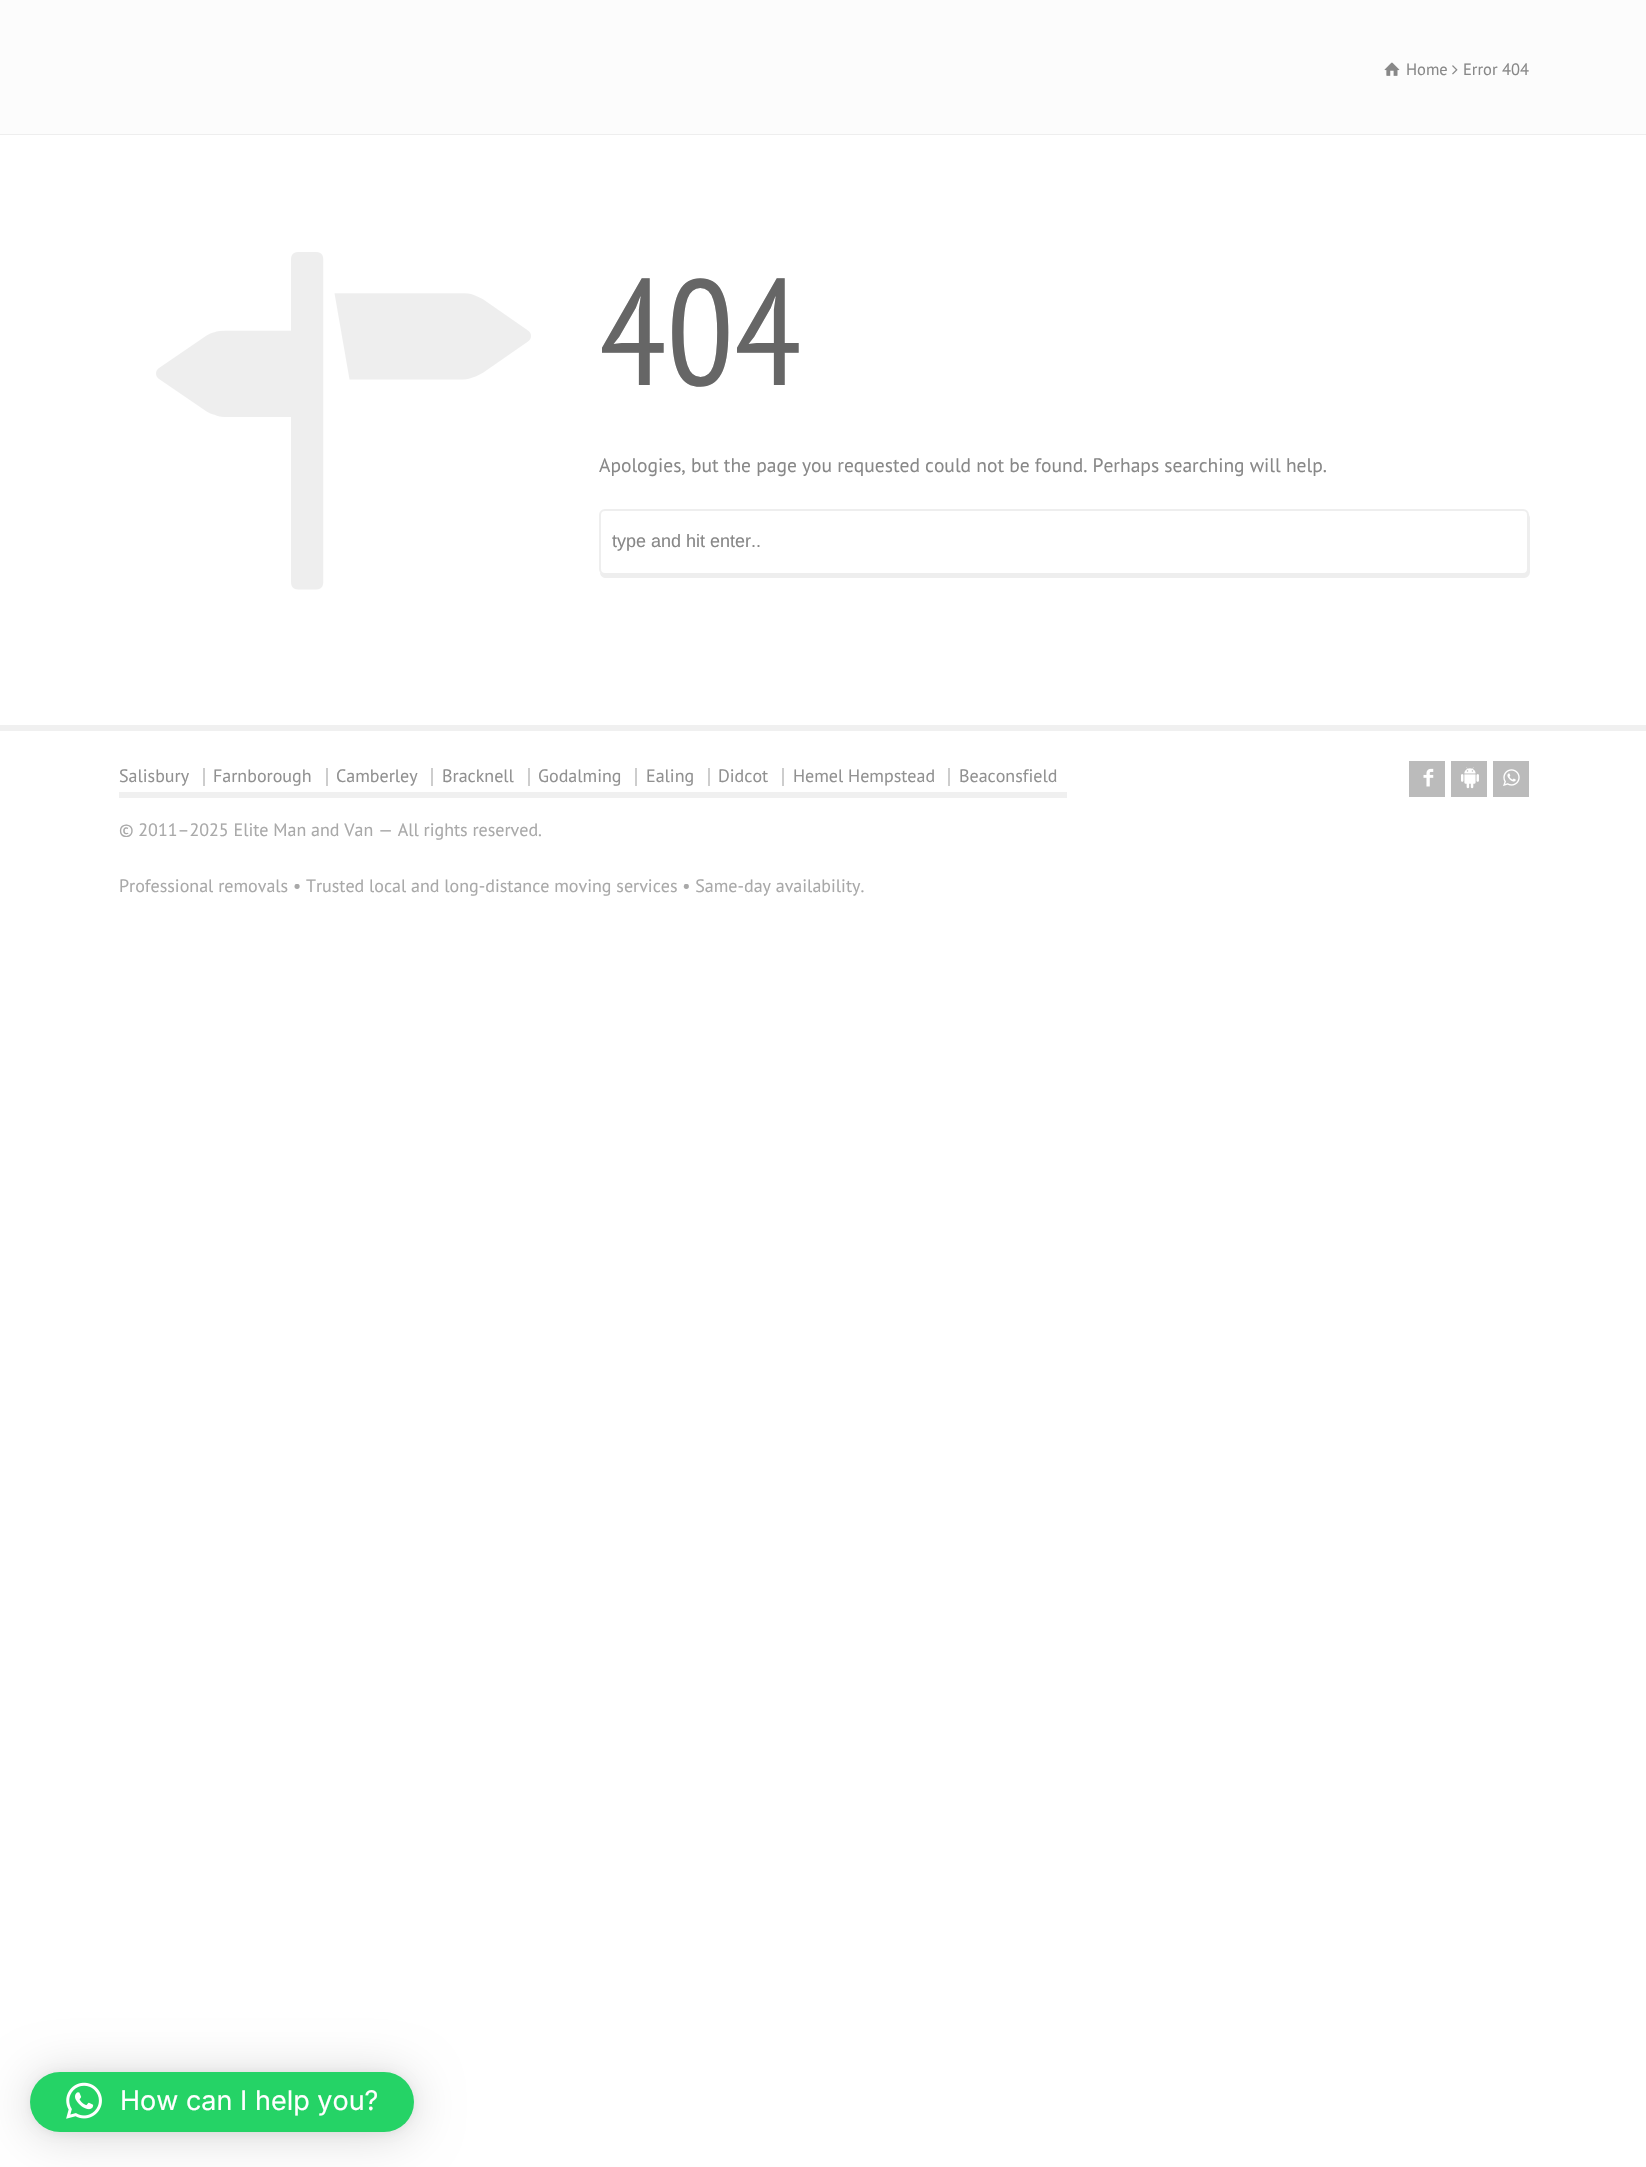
static SkFont makeFont(const char* family, int weight, float size, bool italic = false) {
  SkFontStyle style(weight, SkFontStyle::kNormal_Width,
    italic ? SkFontStyle::kItalic_Slant : SkFontStyle::kUpright_Slant);
  SkFont result(fontMgr->matchFamilyStyle(family, style), size);
  result.setSubpixel(true);
  return result;
}

static void text(SkCanvas* c, const char* s, float x, float y, const SkFont& font, SkColor color) {
  SkPaint ink(SkColor4f::FromColor(color));
  ink.setAntiAlias(true);
  c->drawString(s, x, y, font, ink);
}

static void box(SkCanvas* c, float l, float t, float r, float b, SkColor color) {
  SkPaint ink(SkColor4f::FromColor(color));
  ink.setAntiAlias(true);
  c->drawRect(SkRect::MakeLTRB(l, t, r, b), ink);
}

static void roundBox(SkCanvas* c, float l, float t, float r, float b, float radius, SkColor color) {
  SkPaint ink(SkColor4f::FromColor(color));
  ink.setAntiAlias(true);
  c->drawRoundRect(SkRect::MakeLTRB(l, t, r, b), radius, radius, ink);
}

static void picture(SkCanvas* c, const char* path, float l, float t, float r, float b) {
  auto image = SkImages::DeferredFromEncodedData(SkData::MakeFromFileName(path));
  c->drawImageRect(image, SkRect::MakeLTRB(l, t, r, b), SkSamplingOptions());
}

void draw(SkCanvas* c) {
  SkPaint paint;
  paint.setAntiAlias(true);
  c->clear(0xffffffff);
  box(c, 0, 0, 1646, 134, 0xfffcfcfc);
  box(c, 0, 134, 1646, 135, 0xffeeeeee);
  picture(c, "img_01.png", 1384, 62, 1400, 76);
  SkFont face1 = makeFont("PT Sans", 400, 16.5f);
  text(c, "Home", 1406, 75, face1, 0xff888888);
  picture(c, "img_02.png", 1452, 65, 1458, 75);
  text(c, "Error 404", 1463, 75, face1, 0xff888888);
  picture(c, "img_03.png", 156, 252, 531, 590);
  SkFont face2 = makeFont("PT Sans Narrow", 400, 150);
  text(c, "404", 599, 385, face2, 0xff666666);
  SkFont face3 = makeFont("PT Sans", 400, 19.5f);
  text(c, "Apologies, but the page you requested could not be found. Perhaps searching will help.", 599, 472, face3, 0xff888888);
  paint.setColor(0xffeeeeee);
  c->drawPath(SkPathBuilder().moveTo(600, 572).cubicTo(600, 576, 603, 578, 606, 578).lineTo(1524, 578).cubicTo(1527, 578, 1530, 575, 1530, 572).lineTo(1530, 518).cubicTo(1530, 516, 1529, 515, 1528, 514).lineTo(1528, 568).cubicTo(1528, 572, 1526, 574, 1522, 574).lineTo(604, 574).cubicTo(603, 574, 601, 574, 600, 572).close().detach(), paint);
  paint.setColor(0xffffffff);
  c->drawRoundRect(SkRect::MakeLTRB(600, 510, 1528, 574), 5, 5, paint);
  paint.setStyle(SkPaint::kStroke_Style);
  paint.setStrokeWidth(2);
  paint.setColor(0xffeeeeee);
  c->drawRoundRect(SkRect::MakeLTRB(600, 510, 1528, 574), 5, 5, paint);
  SkFont face4 = makeFont("Liberation Sans", 400, 18);
  text(c, "type and hit enter..", 612, 547, face4, 0xff888888);
  box(c, 0, 725, 1646, 731, 0xfff0f0f0);
  SkFont face5 = makeFont("PT Sans", 400, 18);
  text(c, "Salisbury", 119, 782, face5, 0xff919191);
  box(c, 203, 768, 205, 786, 0xffcdcdcd);
  text(c, "Farnborough", 213, 782, face5, 0xff919191);
  box(c, 326, 768, 328, 786, 0xffcdcdcd);
  text(c, "Camberley", 336, 782, face5, 0xff919191);
  box(c, 431, 768, 433, 786, 0xffcdcdcd);
  text(c, "Bracknell", 442, 782, face5, 0xff919191);
  box(c, 528, 768, 530, 786, 0xffcdcdcd);
  text(c, "Godalming", 538, 782, face5, 0xff919191);
  box(c, 635, 768, 637, 786, 0xffcdcdcd);
  text(c, "Ealing", 646, 782, face5, 0xff919191);
  box(c, 708, 768, 710, 786, 0xffcdcdcd);
  text(c, "Didcot", 718, 782, face5, 0xff919191);
  box(c, 782, 768, 784, 786, 0xffcdcdcd);
  text(c, "Hemel Hempstead", 793, 782, face5, 0xff919191);
  box(c, 948, 768, 950, 786, 0xffcdcdcd);
  text(c, "Beaconsfield", 959, 782, face5, 0xff919191);
  box(c, 119, 792, 1067, 798, 0xfff0f0f0);
  text(c, "© 2011–2025 Elite Man and Van — All rights reserved.", 119, 836, face5, 0xffa9a9a9);
  text(c, "Professional removals • Trusted local and long-distance moving services • Same-day availability.", 119, 892, face5, 0xffa9a9a9);
  box(c, 1409, 761, 1445, 797, 0xffbbbbbb);
  picture(c, "img_04.png", 1423, 768, 1434, 787);
  box(c, 1451, 761, 1487, 797, 0xffbbbbbb);
  picture(c, "img_05.png", 1461, 767, 1479, 789);
  box(c, 1493, 761, 1529, 797, 0xffbbbbbb);
  picture(c, "img_06.png", 1503, 769, 1520, 786);
  paint.setStyle(SkPaint::kFill_Style);
  paint.setColor(0x29000000);
  paint.setMaskFilter(SkMaskFilter::MakeBlur(kNormal_SkBlurStyle, 24));
  c->drawRoundRect(SkRect::MakeLTRB(30, 2075, 414, 2135), 30, 30, paint);
  paint.setMaskFilter(nullptr);
  paint.setColor(0x0f000000);
  paint.setMaskFilter(SkMaskFilter::MakeBlur(kNormal_SkBlurStyle, 4.5f));
  c->drawRoundRect(SkRect::MakeLTRB(30, 2073, 414, 2133), 30, 30, paint);
  paint.setMaskFilter(nullptr);
  roundBox(c, 30, 2072, 414, 2132, 30, 0xff25d366);
  picture(c, "img_07.png", 66, 2082, 102, 2119);
  SkFont face6 = makeFont("Inter", 400, 27);
  text(c, "How can I help you?", 120, 2110, face6, 0xffffffff);
}
